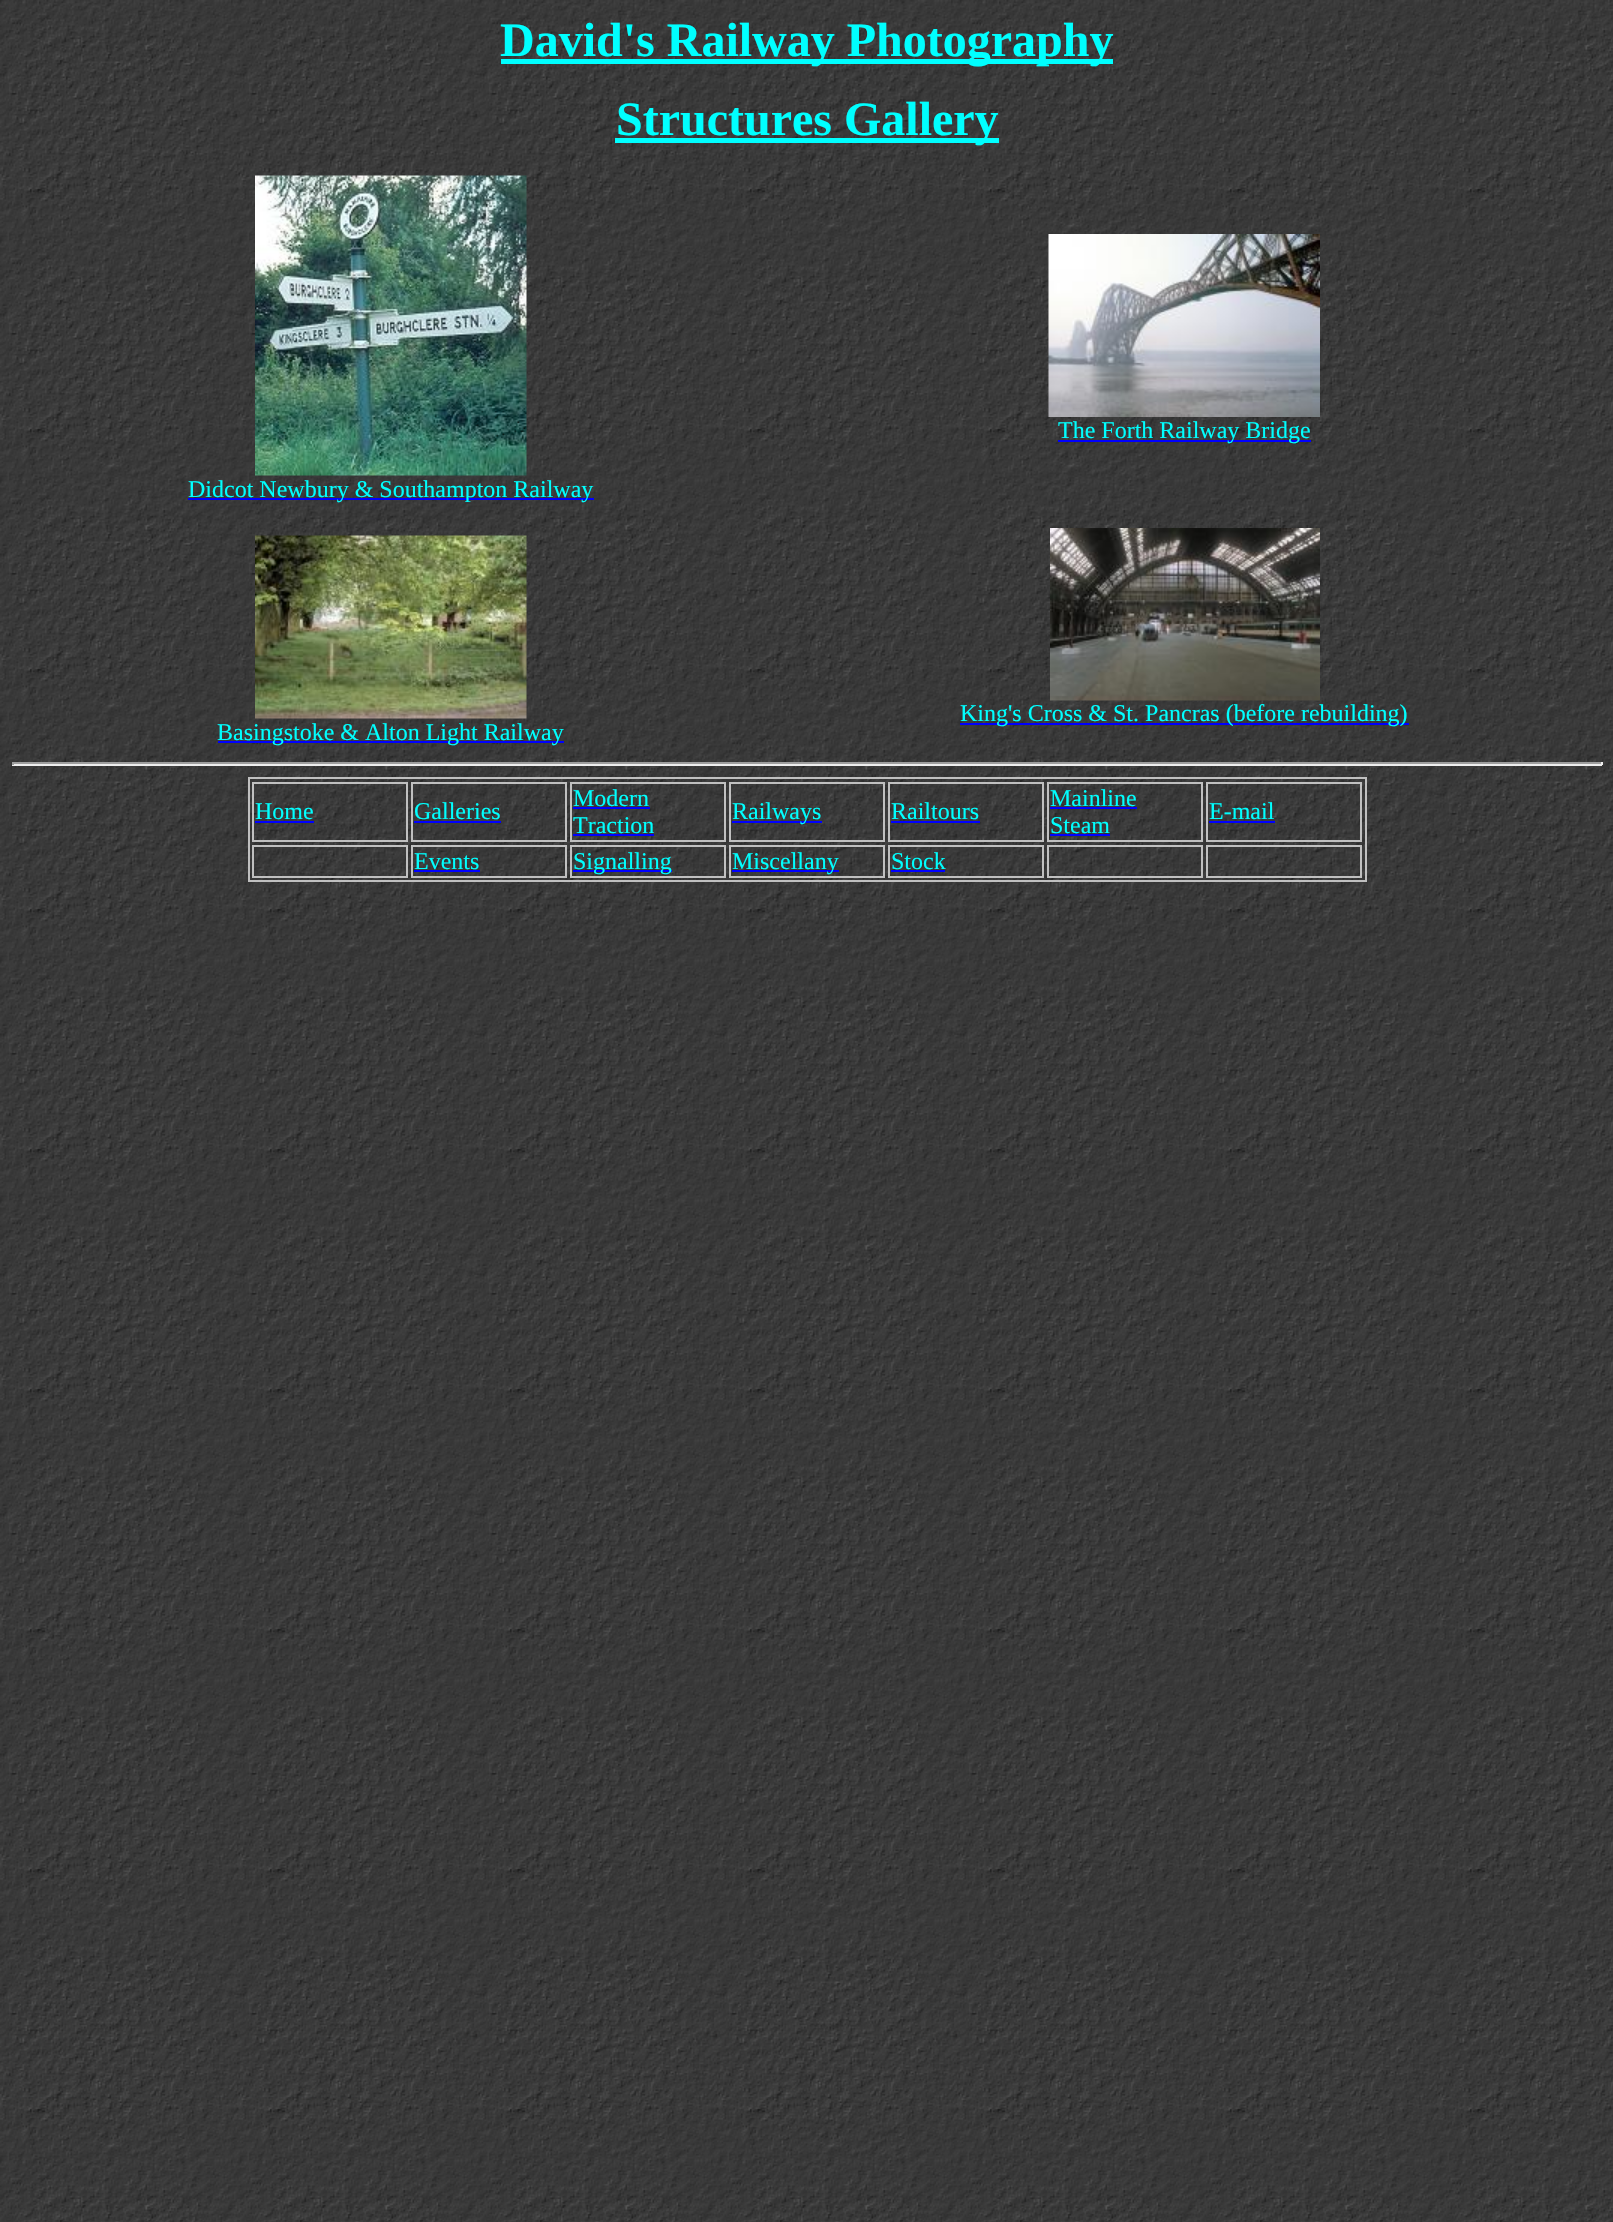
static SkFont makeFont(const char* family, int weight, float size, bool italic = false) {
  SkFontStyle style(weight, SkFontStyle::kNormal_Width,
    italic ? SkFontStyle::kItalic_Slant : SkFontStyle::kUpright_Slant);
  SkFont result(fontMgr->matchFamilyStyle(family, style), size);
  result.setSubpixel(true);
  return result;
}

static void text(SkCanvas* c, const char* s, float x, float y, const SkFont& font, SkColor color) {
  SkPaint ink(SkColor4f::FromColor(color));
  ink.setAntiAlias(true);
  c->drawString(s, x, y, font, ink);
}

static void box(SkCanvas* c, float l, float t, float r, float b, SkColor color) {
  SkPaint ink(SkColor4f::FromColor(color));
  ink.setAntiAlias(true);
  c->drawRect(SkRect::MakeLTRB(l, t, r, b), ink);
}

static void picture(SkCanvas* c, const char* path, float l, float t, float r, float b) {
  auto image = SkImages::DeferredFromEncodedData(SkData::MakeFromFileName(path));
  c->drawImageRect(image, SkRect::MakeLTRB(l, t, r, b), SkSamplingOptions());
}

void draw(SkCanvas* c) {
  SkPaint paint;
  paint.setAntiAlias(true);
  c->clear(0xffffffff);
  picture(c, "img_01.png", 0, 0, 1613, 2222);
  box(c, 501, 59, 1113, 64, 0xff00ffff);
  SkFont face1 = makeFont("Liberation Serif", 700, 48);
  text(c, "David's Railway Photography", 500, 56, face1, 0xff00ffff);
  box(c, 615, 138, 999, 143, 0xff00ffff);
  text(c, "Structures Gallery", 616, 135, face1, 0xff00ffff);
  picture(c, "img_02.png", 1048, 234, 1320, 417);
  box(c, 1058, 440, 1311, 442, 0xff0000ff);
  SkFont face2 = makeFont("Liberation Serif", 400, 24);
  text(c, "The Forth Railway Bridge", 1058, 438, face2, 0xff00ffff);
  picture(c, "img_03.png", 255, 175, 527, 476);
  box(c, 188, 498, 594, 500, 0xff0000ff);
  text(c, "Didcot Newbury & Southampton Railway", 188, 497, face2, 0xff00ffff);
  picture(c, "img_04.png", 1050, 528, 1320, 701);
  box(c, 960, 723, 1409, 725, 0xff0000ff);
  text(c, "King's Cross & St. Pancras (before rebuilding)", 960, 721, face2, 0xff00ffff);
  picture(c, "img_05.png", 255, 535, 527, 719);
  box(c, 218, 741, 564, 743, 0xff0000ff);
  text(c, "Basingstoke & Alton Light Railway", 217, 740, face2, 0xff00ffff);
  box(c, 12, 762, 1602, 764, 0xff9f9f9f);
  box(c, 1601, 762, 1603, 765, 0xffeeeeee);
  box(c, 12, 764, 1602, 766, 0xffeeeeee);
  box(c, 12, 762, 14, 765, 0xff9f9f9f);
  paint.setStyle(SkPaint::kStroke_Style);
  paint.setStrokeWidth(2);
  paint.setColor(0xffc0c0c0);
  c->drawRect(SkRect::MakeLTRB(249, 778, 1366, 881), paint);
  c->drawRect(SkRect::MakeLTRB(253, 783, 407, 841), paint);
  text(c, "Home", 255, 819, face2, 0xff00ffff);
  box(c, 255, 821, 314, 823, 0xff0000ff);
  c->drawRect(SkRect::MakeLTRB(412, 783, 566, 841), paint);
  text(c, "Galleries", 414, 819, face2, 0xff00ffff);
  box(c, 414, 821, 501, 823, 0xff0000ff);
  c->drawRect(SkRect::MakeLTRB(571, 783, 725, 841), paint);
  text(c, "Modern", 573, 806, face2, 0xff00ffff);
  box(c, 573, 807, 650, 809, 0xff0000ff);
  text(c, "Traction", 573, 833, face2, 0xff00ffff);
  box(c, 573, 834, 654, 836, 0xff0000ff);
  c->drawRect(SkRect::MakeLTRB(730, 783, 884, 841), paint);
  box(c, 732, 821, 822, 823, 0xff0000ff);
  text(c, "Railways", 732, 819, face2, 0xff00ffff);
  c->drawRect(SkRect::MakeLTRB(889, 783, 1043, 841), paint);
  text(c, "Railtours", 891, 819, face2, 0xff00ffff);
  box(c, 891, 821, 980, 823, 0xff0000ff);
  c->drawRect(SkRect::MakeLTRB(1048, 783, 1202, 841), paint);
  text(c, "Mainline", 1050, 806, face2, 0xff00ffff);
  box(c, 1050, 807, 1137, 809, 0xff0000ff);
  text(c, "Steam", 1050, 833, face2, 0xff00ffff);
  box(c, 1050, 834, 1110, 836, 0xff0000ff);
  c->drawRect(SkRect::MakeLTRB(1207, 783, 1361, 841), paint);
  text(c, "E-mail", 1209, 819, face2, 0xff00ffff);
  box(c, 1209, 821, 1275, 823, 0xff0000ff);
  c->drawRect(SkRect::MakeLTRB(253, 846, 407, 877), paint);
  c->drawRect(SkRect::MakeLTRB(412, 846, 566, 877), paint);
  text(c, "Events", 414, 869, face2, 0xff00ffff);
  box(c, 414, 870, 480, 872, 0xff0000ff);
  c->drawRect(SkRect::MakeLTRB(571, 846, 725, 877), paint);
  box(c, 573, 870, 672, 872, 0xff0000ff);
  text(c, "Signalling", 573, 869, face2, 0xff00ffff);
  c->drawRect(SkRect::MakeLTRB(730, 846, 884, 877), paint);
  box(c, 732, 870, 839, 872, 0xff0000ff);
  text(c, "Miscellany", 732, 869, face2, 0xff00ffff);
  c->drawRect(SkRect::MakeLTRB(889, 846, 1043, 877), paint);
  text(c, "Stock", 891, 869, face2, 0xff00ffff);
  box(c, 891, 870, 945, 872, 0xff0000ff);
  c->drawRect(SkRect::MakeLTRB(1048, 846, 1202, 877), paint);
  c->drawRect(SkRect::MakeLTRB(1207, 846, 1361, 877), paint);
}
